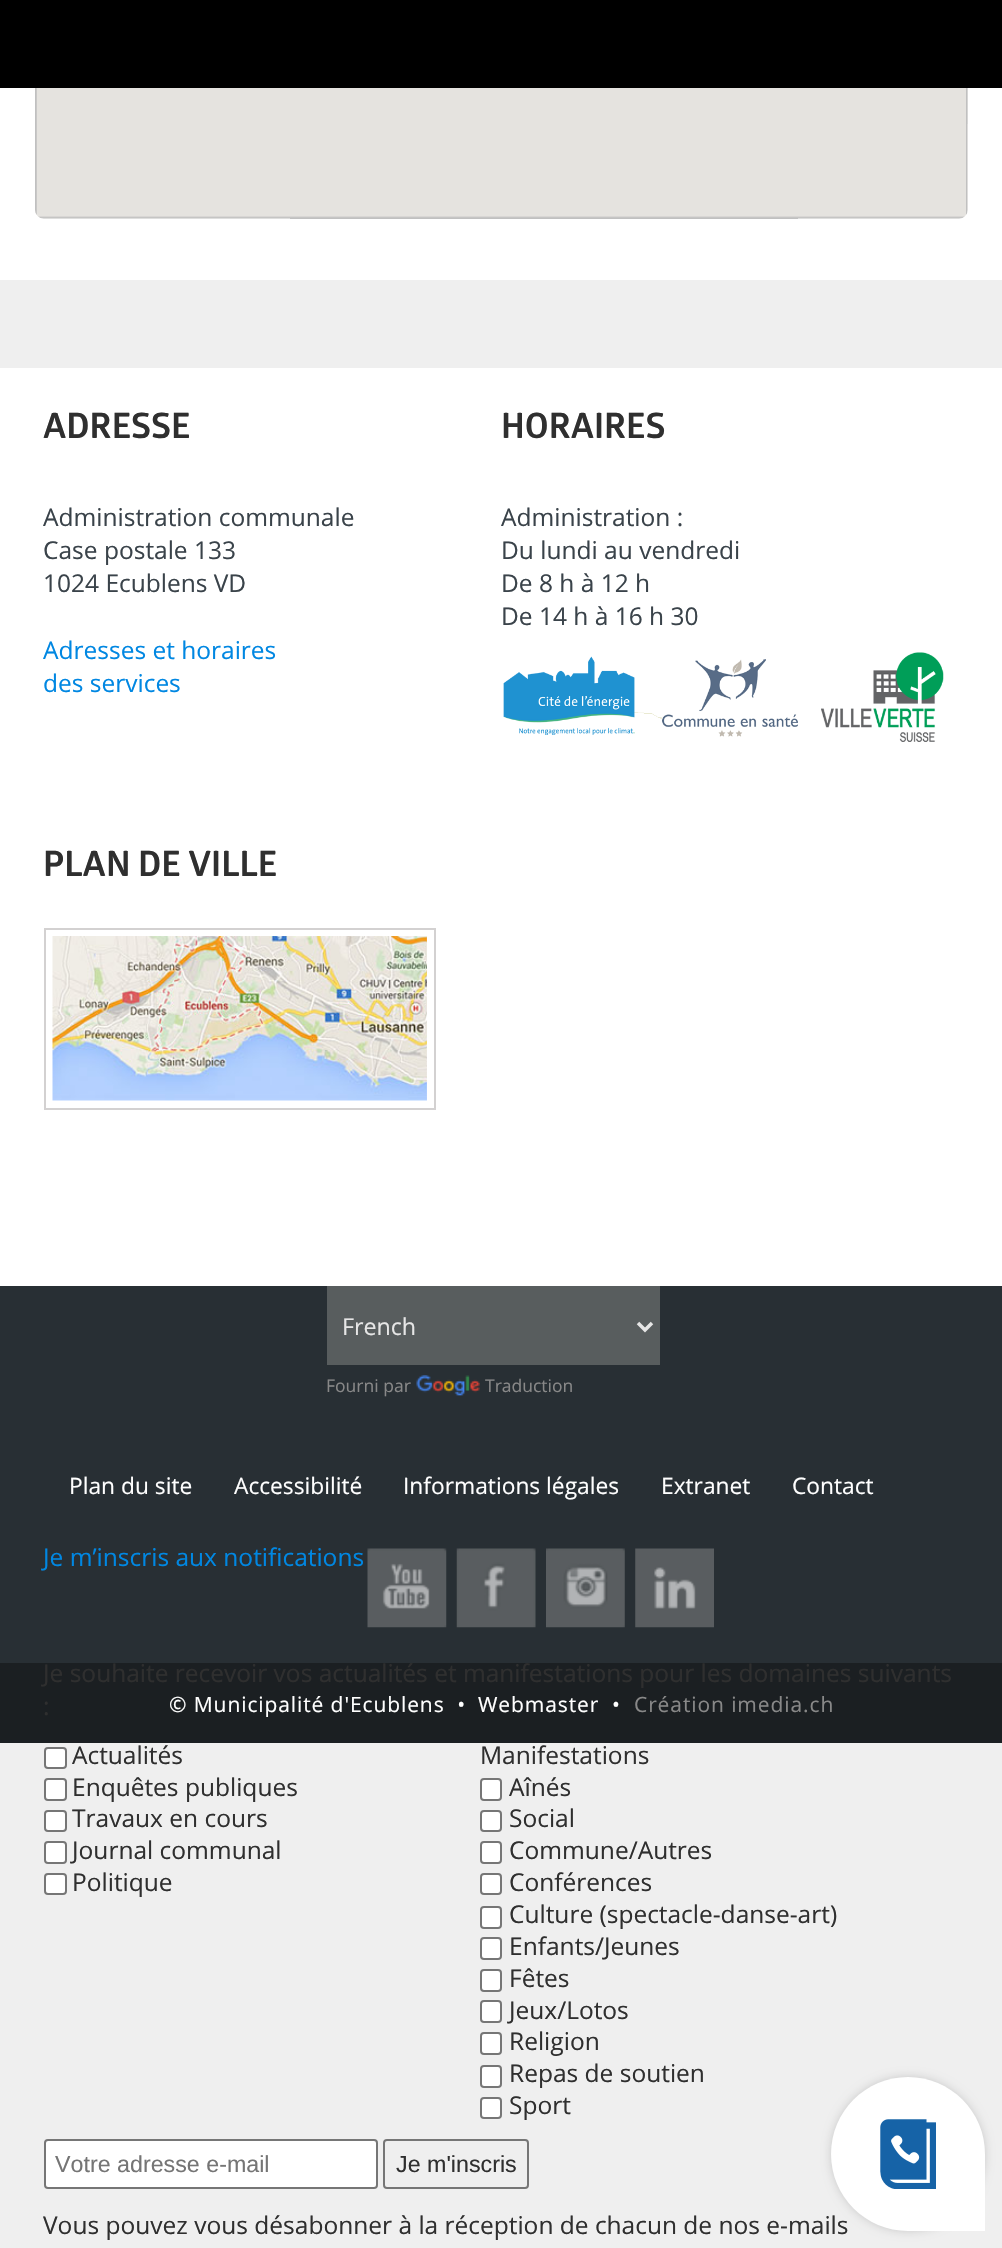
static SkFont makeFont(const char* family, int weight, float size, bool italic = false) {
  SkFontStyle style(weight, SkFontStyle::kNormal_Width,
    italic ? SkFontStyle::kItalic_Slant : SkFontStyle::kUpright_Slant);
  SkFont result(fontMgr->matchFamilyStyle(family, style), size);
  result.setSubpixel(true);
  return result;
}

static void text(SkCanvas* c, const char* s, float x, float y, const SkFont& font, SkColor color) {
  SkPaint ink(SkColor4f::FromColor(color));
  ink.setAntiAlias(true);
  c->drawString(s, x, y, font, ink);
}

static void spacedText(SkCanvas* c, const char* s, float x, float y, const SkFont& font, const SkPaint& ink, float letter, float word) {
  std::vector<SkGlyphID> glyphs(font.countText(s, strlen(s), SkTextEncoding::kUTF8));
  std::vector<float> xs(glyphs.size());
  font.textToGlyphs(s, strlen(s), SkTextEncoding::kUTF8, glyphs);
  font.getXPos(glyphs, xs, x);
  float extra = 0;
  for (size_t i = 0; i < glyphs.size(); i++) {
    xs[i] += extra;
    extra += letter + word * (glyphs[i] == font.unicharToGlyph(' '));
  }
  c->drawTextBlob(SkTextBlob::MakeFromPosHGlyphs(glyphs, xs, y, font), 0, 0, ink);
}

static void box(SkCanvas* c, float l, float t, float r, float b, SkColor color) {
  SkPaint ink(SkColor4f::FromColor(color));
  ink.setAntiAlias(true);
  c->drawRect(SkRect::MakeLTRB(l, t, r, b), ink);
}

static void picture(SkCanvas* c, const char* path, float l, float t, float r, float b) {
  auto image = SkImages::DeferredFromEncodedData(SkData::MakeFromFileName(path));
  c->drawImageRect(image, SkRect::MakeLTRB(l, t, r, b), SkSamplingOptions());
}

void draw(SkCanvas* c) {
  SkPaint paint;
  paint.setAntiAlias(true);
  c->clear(0xffefefef);
  box(c, 0, 0, 1002, 88, 0xff000000);
  box(c, 0, 88, 1002, 280, 0xffffffff);
  picture(c, "img_01.png", 35, 88, 968, 219);
  box(c, 0, 368, 1002, 1286, 0xffffffff);
  SkFont face1 = makeFont("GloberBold", 700, 35);
  text(c, "ADRESSE", 43, 438, face1, 0xff2f2f2f);
  SkFont face2 = makeFont("Open Sans", 400, 24.5f);
  text(c, "Administration communale", 43, 526, face2, 0xff3a434a);
  text(c, "Case postale 133", 43, 559, face2, 0xff3a434a);
  text(c, "1024 Ecublens VD", 43, 592, face2, 0xff3a434a);
  text(c, "Adresses et horaires", 43, 659, face2, 0xff0087e2);
  text(c, "des services", 43, 692, face2, 0xff0087e2);
  text(c, "HORAIRES", 501, 438, face1, 0xff2f2f2f);
  text(c, "Administration :", 501, 526, face2, 0xff3a434a);
  text(c, "Du lundi au vendredi", 501, 559, face2, 0xff3a434a);
  text(c, "De 8 h à 12 h", 501, 592, face2, 0xff3a434a);
  text(c, "De 14 h à 16 h 30", 501, 625, face2, 0xff3a434a);
  picture(c, "img_02.png", 503, 652, 944, 742);
  text(c, "PLAN DE VILLE", 43, 876, face1, 0xff2f2f2f);
  paint.setStyle(SkPaint::kStroke_Style);
  paint.setStrokeWidth(2);
  paint.setColor(0xffd3d1d1);
  c->drawRect(SkRect::MakeLTRB(45, 929, 435, 1109), paint);
  picture(c, "img_03.png", 52, 936, 427, 1101);
  box(c, 0, 1286, 1002, 1663, 0xff282f34);
  box(c, 327, 1286, 660, 1365, 0xff585d5e);
  paint.setStrokeWidth(3.5f);
  paint.setColor(0xffe6e6e6);
  c->drawPath(SkPathBuilder().moveTo(638, 1323).lineTo(645, 1330).lineTo(652, 1323).detach(), paint);
  SkFont face3 = makeFont("Open Sans", 400, 23.25f);
  text(c, "French", 342, 1335, face3, 0xffe6e6e6);
  SkFont face4 = makeFont("Open Sans", 400, 17.5f);
  text(c, "Fourni par", 326, 1392, face4, 0xff888888);
  picture(c, "img_04.png", 416, 1375, 480, 1396);
  text(c, "Traduction", 485, 1392, face4, 0xff888888);
  SkFont face5 = makeFont("Open Sans", 400, 22.75f);
  text(c, "Plan du site", 69, 1494, face5, 0xffffffff);
  text(c, "Accessibilité", 234, 1494, face5, 0xffffffff);
  text(c, "Informations légales", 403, 1494, face5, 0xffffffff);
  text(c, "Extranet", 661, 1494, face5, 0xffffffff);
  text(c, "Contact", 792, 1494, face5, 0xffffffff);
  text(c, "Je m’inscris aux notifications", 43, 1566, face2, 0xff0087e2);
  box(c, 0, 1663, 1002, 1743, 0xff1b1f22);
  text(c, "Je souhaite recevoir vos actualités et manifestations pour les domaines suivants", 43, 1682, face2, 0xff2f2f2f);
  text(c, ":", 43, 1715, face2, 0xff2f2f2f);
  paint.setStyle(SkPaint::kFill_Style);
  paint.setColor(0xffffffff);
  c->drawRoundRect(SkRect::MakeLTRB(45, 1748, 66, 1768), 3, 3, paint);
  paint.setStyle(SkPaint::kStroke_Style);
  paint.setStrokeWidth(2);
  paint.setColor(0xff767676);
  c->drawRoundRect(SkRect::MakeLTRB(45, 1748, 66, 1768), 3, 3, paint);
  text(c, "Actualités", 72, 1764, face2, 0xff2f2f2f);
  paint.setStyle(SkPaint::kFill_Style);
  paint.setColor(0xffffffff);
  c->drawRoundRect(SkRect::MakeLTRB(45, 1779, 66, 1800), 3, 3, paint);
  paint.setStyle(SkPaint::kStroke_Style);
  paint.setColor(0xff767676);
  c->drawRoundRect(SkRect::MakeLTRB(45, 1779, 66, 1800), 3, 3, paint);
  text(c, "Enquêtes publiques", 72, 1796, face2, 0xff2f2f2f);
  paint.setStyle(SkPaint::kFill_Style);
  paint.setColor(0xffffffff);
  c->drawRoundRect(SkRect::MakeLTRB(45, 1811, 66, 1831), 3, 3, paint);
  paint.setStyle(SkPaint::kStroke_Style);
  paint.setColor(0xff767676);
  c->drawRoundRect(SkRect::MakeLTRB(45, 1811, 66, 1831), 3, 3, paint);
  text(c, "Travaux en cours", 72, 1827, face2, 0xff2f2f2f);
  paint.setStyle(SkPaint::kFill_Style);
  paint.setColor(0xffffffff);
  c->drawRoundRect(SkRect::MakeLTRB(45, 1842, 66, 1863), 3, 3, paint);
  paint.setStyle(SkPaint::kStroke_Style);
  paint.setColor(0xff767676);
  c->drawRoundRect(SkRect::MakeLTRB(45, 1842, 66, 1863), 3, 3, paint);
  text(c, "Journal communal", 72, 1859, face2, 0xff2f2f2f);
  paint.setStyle(SkPaint::kFill_Style);
  paint.setColor(0xffffffff);
  c->drawRoundRect(SkRect::MakeLTRB(45, 1874, 66, 1894), 3, 3, paint);
  paint.setStyle(SkPaint::kStroke_Style);
  paint.setColor(0xff767676);
  c->drawRoundRect(SkRect::MakeLTRB(45, 1874, 66, 1894), 3, 3, paint);
  text(c, "Politique", 72, 1891, face2, 0xff2f2f2f);
  text(c, "Manifestations", 480, 1764, face2, 0xff2f2f2f);
  paint.setStyle(SkPaint::kFill_Style);
  paint.setColor(0xffffffff);
  c->drawRoundRect(SkRect::MakeLTRB(481, 1779, 501, 1800), 3, 3, paint);
  paint.setStyle(SkPaint::kStroke_Style);
  paint.setColor(0xff767676);
  c->drawRoundRect(SkRect::MakeLTRB(481, 1779, 501, 1800), 3, 3, paint);
  text(c, "Aînés", 509, 1796, face2, 0xff2f2f2f);
  paint.setStyle(SkPaint::kFill_Style);
  paint.setColor(0xffffffff);
  c->drawRoundRect(SkRect::MakeLTRB(481, 1811, 501, 1831), 3, 3, paint);
  paint.setStyle(SkPaint::kStroke_Style);
  paint.setColor(0xff767676);
  c->drawRoundRect(SkRect::MakeLTRB(481, 1811, 501, 1831), 3, 3, paint);
  text(c, "Social", 509, 1827, face2, 0xff2f2f2f);
  paint.setStyle(SkPaint::kFill_Style);
  paint.setColor(0xffffffff);
  c->drawRoundRect(SkRect::MakeLTRB(481, 1842, 501, 1863), 3, 3, paint);
  paint.setStyle(SkPaint::kStroke_Style);
  paint.setColor(0xff767676);
  c->drawRoundRect(SkRect::MakeLTRB(481, 1842, 501, 1863), 3, 3, paint);
  text(c, "Commune/Autres", 509, 1859, face2, 0xff2f2f2f);
  paint.setStyle(SkPaint::kFill_Style);
  paint.setColor(0xffffffff);
  c->drawRoundRect(SkRect::MakeLTRB(481, 1874, 501, 1894), 3, 3, paint);
  paint.setStyle(SkPaint::kStroke_Style);
  paint.setColor(0xff767676);
  c->drawRoundRect(SkRect::MakeLTRB(481, 1874, 501, 1894), 3, 3, paint);
  text(c, "Conférences", 509, 1891, face2, 0xff2f2f2f);
  paint.setStyle(SkPaint::kFill_Style);
  paint.setColor(0xffffffff);
  c->drawRoundRect(SkRect::MakeLTRB(481, 1907, 501, 1928), 3, 3, paint);
  paint.setStyle(SkPaint::kStroke_Style);
  paint.setColor(0xff767676);
  c->drawRoundRect(SkRect::MakeLTRB(481, 1907, 501, 1928), 3, 3, paint);
  text(c, "Culture (spectacle-danse-art)", 509, 1923, face2, 0xff2f2f2f);
  paint.setStyle(SkPaint::kFill_Style);
  paint.setColor(0xffffffff);
  c->drawRoundRect(SkRect::MakeLTRB(481, 1938, 501, 1959), 3, 3, paint);
  paint.setStyle(SkPaint::kStroke_Style);
  paint.setColor(0xff767676);
  c->drawRoundRect(SkRect::MakeLTRB(481, 1938, 501, 1959), 3, 3, paint);
  text(c, "Enfants/Jeunes", 509, 1955, face2, 0xff2f2f2f);
  paint.setStyle(SkPaint::kFill_Style);
  paint.setColor(0xffffffff);
  c->drawRoundRect(SkRect::MakeLTRB(481, 1970, 501, 1991), 3, 3, paint);
  paint.setStyle(SkPaint::kStroke_Style);
  paint.setColor(0xff767676);
  c->drawRoundRect(SkRect::MakeLTRB(481, 1970, 501, 1991), 3, 3, paint);
  text(c, "Fêtes", 509, 1987, face2, 0xff2f2f2f);
  paint.setStyle(SkPaint::kFill_Style);
  paint.setColor(0xffffffff);
  c->drawRoundRect(SkRect::MakeLTRB(481, 2001, 501, 2022), 3, 3, paint);
  paint.setStyle(SkPaint::kStroke_Style);
  paint.setColor(0xff767676);
  c->drawRoundRect(SkRect::MakeLTRB(481, 2001, 501, 2022), 3, 3, paint);
  text(c, "Jeux/Lotos", 509, 2019, face2, 0xff2f2f2f);
  paint.setStyle(SkPaint::kFill_Style);
  paint.setColor(0xffffffff);
  c->drawRoundRect(SkRect::MakeLTRB(481, 2033, 501, 2054), 3, 3, paint);
  paint.setStyle(SkPaint::kStroke_Style);
  paint.setColor(0xff767676);
  c->drawRoundRect(SkRect::MakeLTRB(481, 2033, 501, 2054), 3, 3, paint);
  text(c, "Religion", 509, 2050, face2, 0xff2f2f2f);
  paint.setStyle(SkPaint::kFill_Style);
  paint.setColor(0xffffffff);
  c->drawRoundRect(SkRect::MakeLTRB(481, 2066, 501, 2087), 3, 3, paint);
  paint.setStyle(SkPaint::kStroke_Style);
  paint.setColor(0xff767676);
  c->drawRoundRect(SkRect::MakeLTRB(481, 2066, 501, 2087), 3, 3, paint);
  text(c, "Repas de soutien", 509, 2082, face2, 0xff2f2f2f);
  paint.setStyle(SkPaint::kFill_Style);
  paint.setColor(0xffffffff);
  c->drawRoundRect(SkRect::MakeLTRB(481, 2098, 501, 2118), 3, 3, paint);
  paint.setStyle(SkPaint::kStroke_Style);
  paint.setColor(0xff767676);
  c->drawRoundRect(SkRect::MakeLTRB(481, 2098, 501, 2118), 3, 3, paint);
  text(c, "Sport", 509, 2114, face2, 0xff2f2f2f);
  paint.setStyle(SkPaint::kFill_Style);
  paint.setColor(0xffffffff);
  c->drawRoundRect(SkRect::MakeLTRB(45, 2140, 377, 2188), 3, 3, paint);
  paint.setStyle(SkPaint::kStroke_Style);
  paint.setColor(0xff767676);
  c->drawRoundRect(SkRect::MakeLTRB(45, 2140, 377, 2188), 3, 3, paint);
  SkFont face6 = makeFont("Liberation Sans", 400, 23.25f);
  text(c, "Votre adresse e-mail", 55, 2172, face6, 0xff757575);
  c->drawRoundRect(SkRect::MakeLTRB(384, 2140, 528, 2188), 3, 3, paint);
  text(c, "Je m'inscris", 396, 2172, face6, 0xff2f2f2f);
  text(c, "Vous pouvez vous désabonner à la réception de chacun de nos e-mails", 43, 2234, face2, 0xff2f2f2f);
  picture(c, "img_05.png", 367, 1548, 447, 1628);
  picture(c, "img_06.png", 456, 1548, 536, 1628);
  picture(c, "img_07.png", 546, 1548, 625, 1628);
  picture(c, "img_08.png", 635, 1548, 714, 1628);
  SkFont face7 = makeFont("Open Sans", 400, 21);
  paint.setStyle(SkPaint::kFill_Style);
  paint.setColor(0xffffffff);
  spacedText(c, "© Municipalité d'Ecublens  •", 169, 1712, face7, paint, 0.9f, 0);
  spacedText(c, "Webmaster", 478, 1712, face7, paint, 0.9f, 0);
  spacedText(c, "•", 612, 1712, face7, paint, 0.9f, 0);
  paint.setColor(0xff888888);
  spacedText(c, "Création imedia.ch", 634, 1712, face7, paint, 0.9f, 0);
  paint.setColor(0x29000000);
  paint.setMaskFilter(SkMaskFilter::MakeBlur(kNormal_SkBlurStyle, 5));
  c->drawRoundRect(SkRect::MakeLTRB(831, 2077, 985, 2231), 77, 77, paint);
  paint.setMaskFilter(nullptr);
  paint.setColor(0xffffffff);
  c->drawPath(SkPathBuilder().moveTo(908, 2077).cubicTo(950.5f, 2077, 985, 2111.5f, 985, 2154).lineTo(985, 2231).lineTo(908, 2231).cubicTo(865.5f, 2231, 831, 2196.5f, 831, 2154).cubicTo(831, 2111.5f, 865.5f, 2077, 908, 2077).close().detach(), paint);
  picture(c, "img_09.png", 880, 2119, 936, 2189);
}
